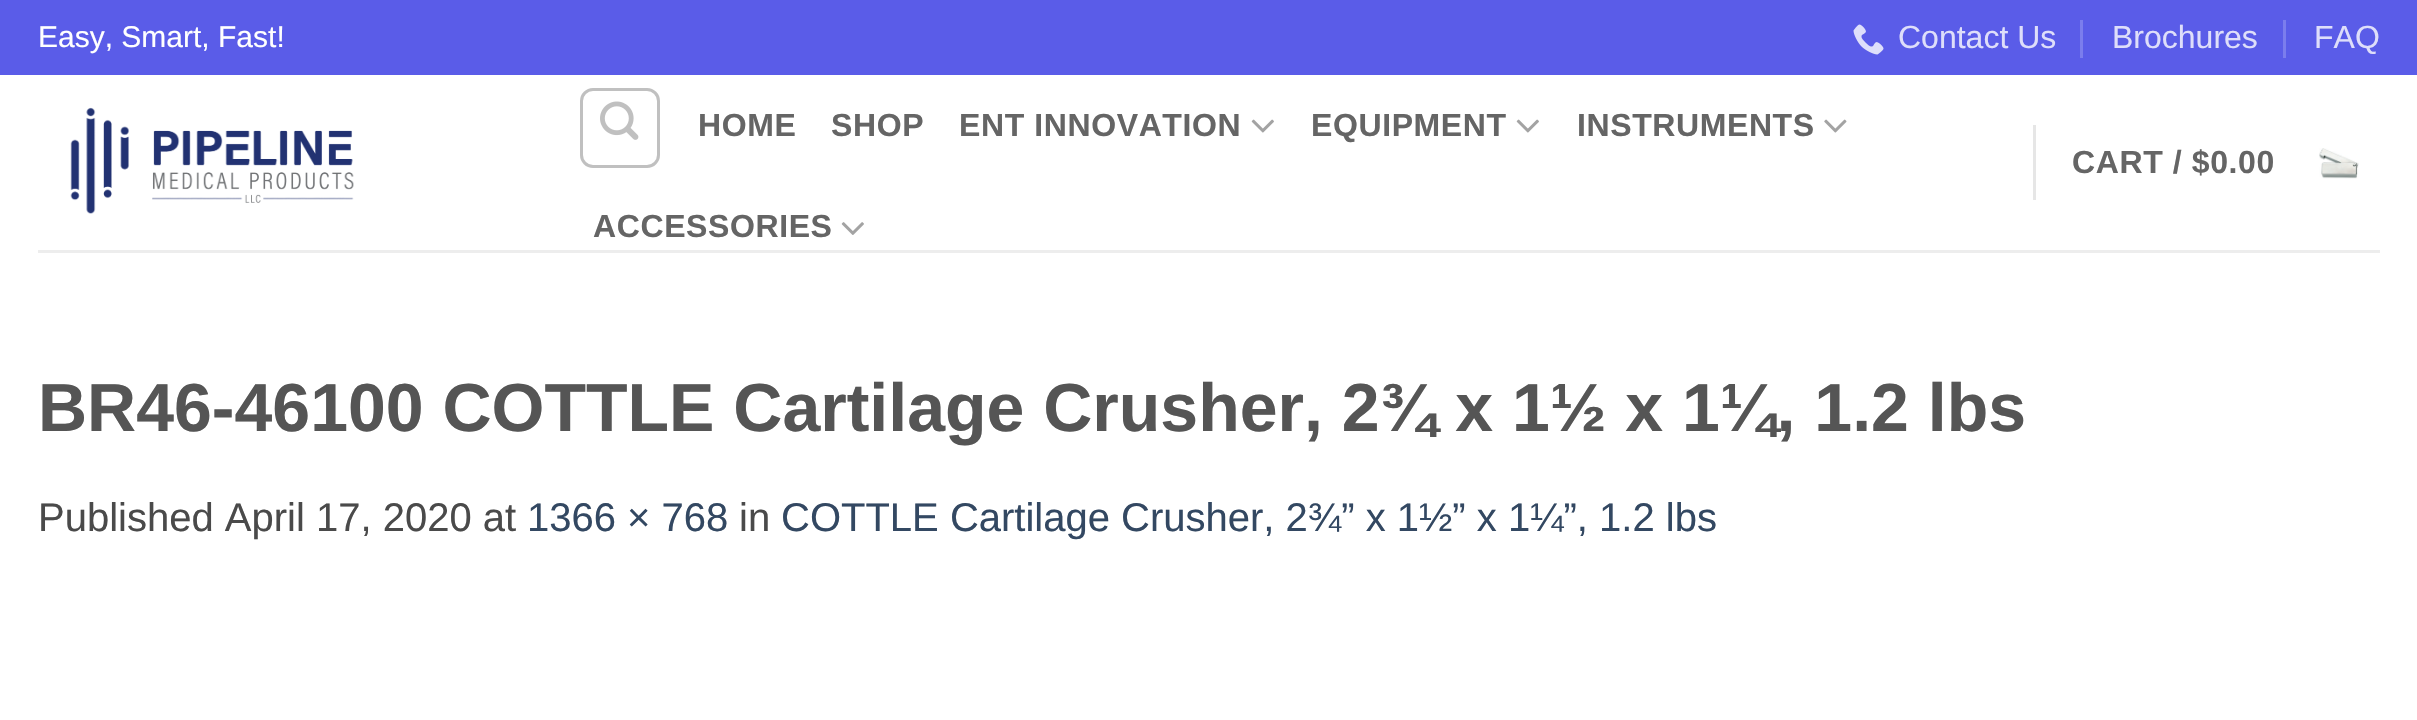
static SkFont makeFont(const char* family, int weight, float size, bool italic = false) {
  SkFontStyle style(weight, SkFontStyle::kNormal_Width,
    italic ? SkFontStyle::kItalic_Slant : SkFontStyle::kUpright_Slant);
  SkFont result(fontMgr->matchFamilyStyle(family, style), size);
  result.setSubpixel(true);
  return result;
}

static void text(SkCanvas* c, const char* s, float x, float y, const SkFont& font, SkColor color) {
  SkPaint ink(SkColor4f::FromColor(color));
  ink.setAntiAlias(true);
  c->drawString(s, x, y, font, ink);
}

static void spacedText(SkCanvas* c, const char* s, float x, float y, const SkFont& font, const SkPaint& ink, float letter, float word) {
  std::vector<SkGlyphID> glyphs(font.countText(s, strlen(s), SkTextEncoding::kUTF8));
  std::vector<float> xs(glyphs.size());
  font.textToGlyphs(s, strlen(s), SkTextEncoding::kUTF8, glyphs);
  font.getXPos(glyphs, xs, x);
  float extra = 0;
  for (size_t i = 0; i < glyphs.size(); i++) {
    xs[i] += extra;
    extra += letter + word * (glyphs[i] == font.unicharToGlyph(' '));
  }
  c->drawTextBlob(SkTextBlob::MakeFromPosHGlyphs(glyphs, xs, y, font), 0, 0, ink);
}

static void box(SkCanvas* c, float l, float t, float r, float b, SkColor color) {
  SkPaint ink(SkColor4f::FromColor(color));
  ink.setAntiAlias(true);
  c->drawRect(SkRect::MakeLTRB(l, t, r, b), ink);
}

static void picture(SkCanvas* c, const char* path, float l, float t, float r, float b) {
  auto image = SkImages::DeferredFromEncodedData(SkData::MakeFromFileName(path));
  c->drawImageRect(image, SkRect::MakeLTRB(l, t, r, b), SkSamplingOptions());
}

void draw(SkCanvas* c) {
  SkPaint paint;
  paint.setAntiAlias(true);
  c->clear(0xffffffff);
  box(c, 0, 0, 2417, 75, 0xff5a5ce8);
  SkFont face1 = makeFont("Liberation Sans", 400, 30);
  text(c, "Easy, Smart, Fast!", 38, 47, face1, 0xffffffff);
  picture(c, "img_01.png", 1853, 24, 1884, 55);
  SkFont face2 = makeFont("Liberation Sans", 400, 32);
  text(c, "Contact Us", 1898, 48, face2, 0xffdedefa);
  box(c, 2080, 20, 2083, 58, 0xff7b7ded);
  text(c, "Brochures", 2112, 48, face2, 0xffdedefa);
  box(c, 2283, 20, 2286, 58, 0xff7b7ded);
  text(c, "FAQ", 2314, 48, face2, 0xffdedefa);
  picture(c, "img_02.png", 70, 107, 354, 214);
  paint.setStyle(SkPaint::kStroke_Style);
  paint.setStrokeWidth(3);
  paint.setColor(0xffc0c0c0);
  c->drawRoundRect(SkRect::MakeLTRB(581.5f, 89.5f, 658.5f, 166.5f), 11.5f, 11.5f, paint);
  picture(c, "img_03.png", 600, 101, 639, 140);
  SkFont face3 = makeFont("Liberation Sans", 700, 32);
  paint.setStyle(SkPaint::kFill_Style);
  paint.setColor(0xff656565);
  spacedText(c, "HOME", 698, 136, face3, paint, 0.6f, 0);
  spacedText(c, "SHOP", 831, 136, face3, paint, 0.6f, 0);
  spacedText(c, "ENT INNOVATION", 959, 136, face3, paint, 0.6f, 0);
  picture(c, "img_04.png", 1251, 119, 1274, 133);
  spacedText(c, "EQUIPMENT", 1311, 136, face3, paint, 0.6f, 0);
  picture(c, "img_04.png", 1516, 119, 1539, 133);
  spacedText(c, "INSTRUMENTS", 1577, 136, face3, paint, 0.6f, 0);
  picture(c, "img_05.png", 1824, 119, 1847, 133);
  spacedText(c, "ACCESSORIES", 593, 237, face3, paint, 0.6f, 0);
  picture(c, "img_06.png", 841, 222, 864, 235);
  box(c, 2033, 125, 2036, 200, 0xffe6e6e6);
  spacedText(c, "CART / $0.00", 2072, 173, face3, paint, 0.6f, 0);
  picture(c, "img_07.png", 2319, 148, 2359, 179);
  box(c, 38, 250, 2380, 253, 0xffededed);
  SkFont face4 = makeFont("Liberation Sans", 700, 68);
  text(c, "BR46-46100 COTTLE Cartilage Crusher, 2¾ x 1½ x 1¼, 1.2 lbs", 38, 431, face4, 0xff555555);
  SkFont face5 = makeFont("Liberation Sans", 400, 40);
  text(c, "Published April 17, 2020 at", 38, 531, face5, 0xff4a4a4a);
  text(c, "1366 × 768", 527, 531, face5, 0xff334862);
  text(c, "in", 739, 531, face5, 0xff4a4a4a);
  text(c, "COTTLE Cartilage Crusher, 2¾” x 1½” x 1¼”, 1.2 lbs", 781, 531, face5, 0xff334862);
}
